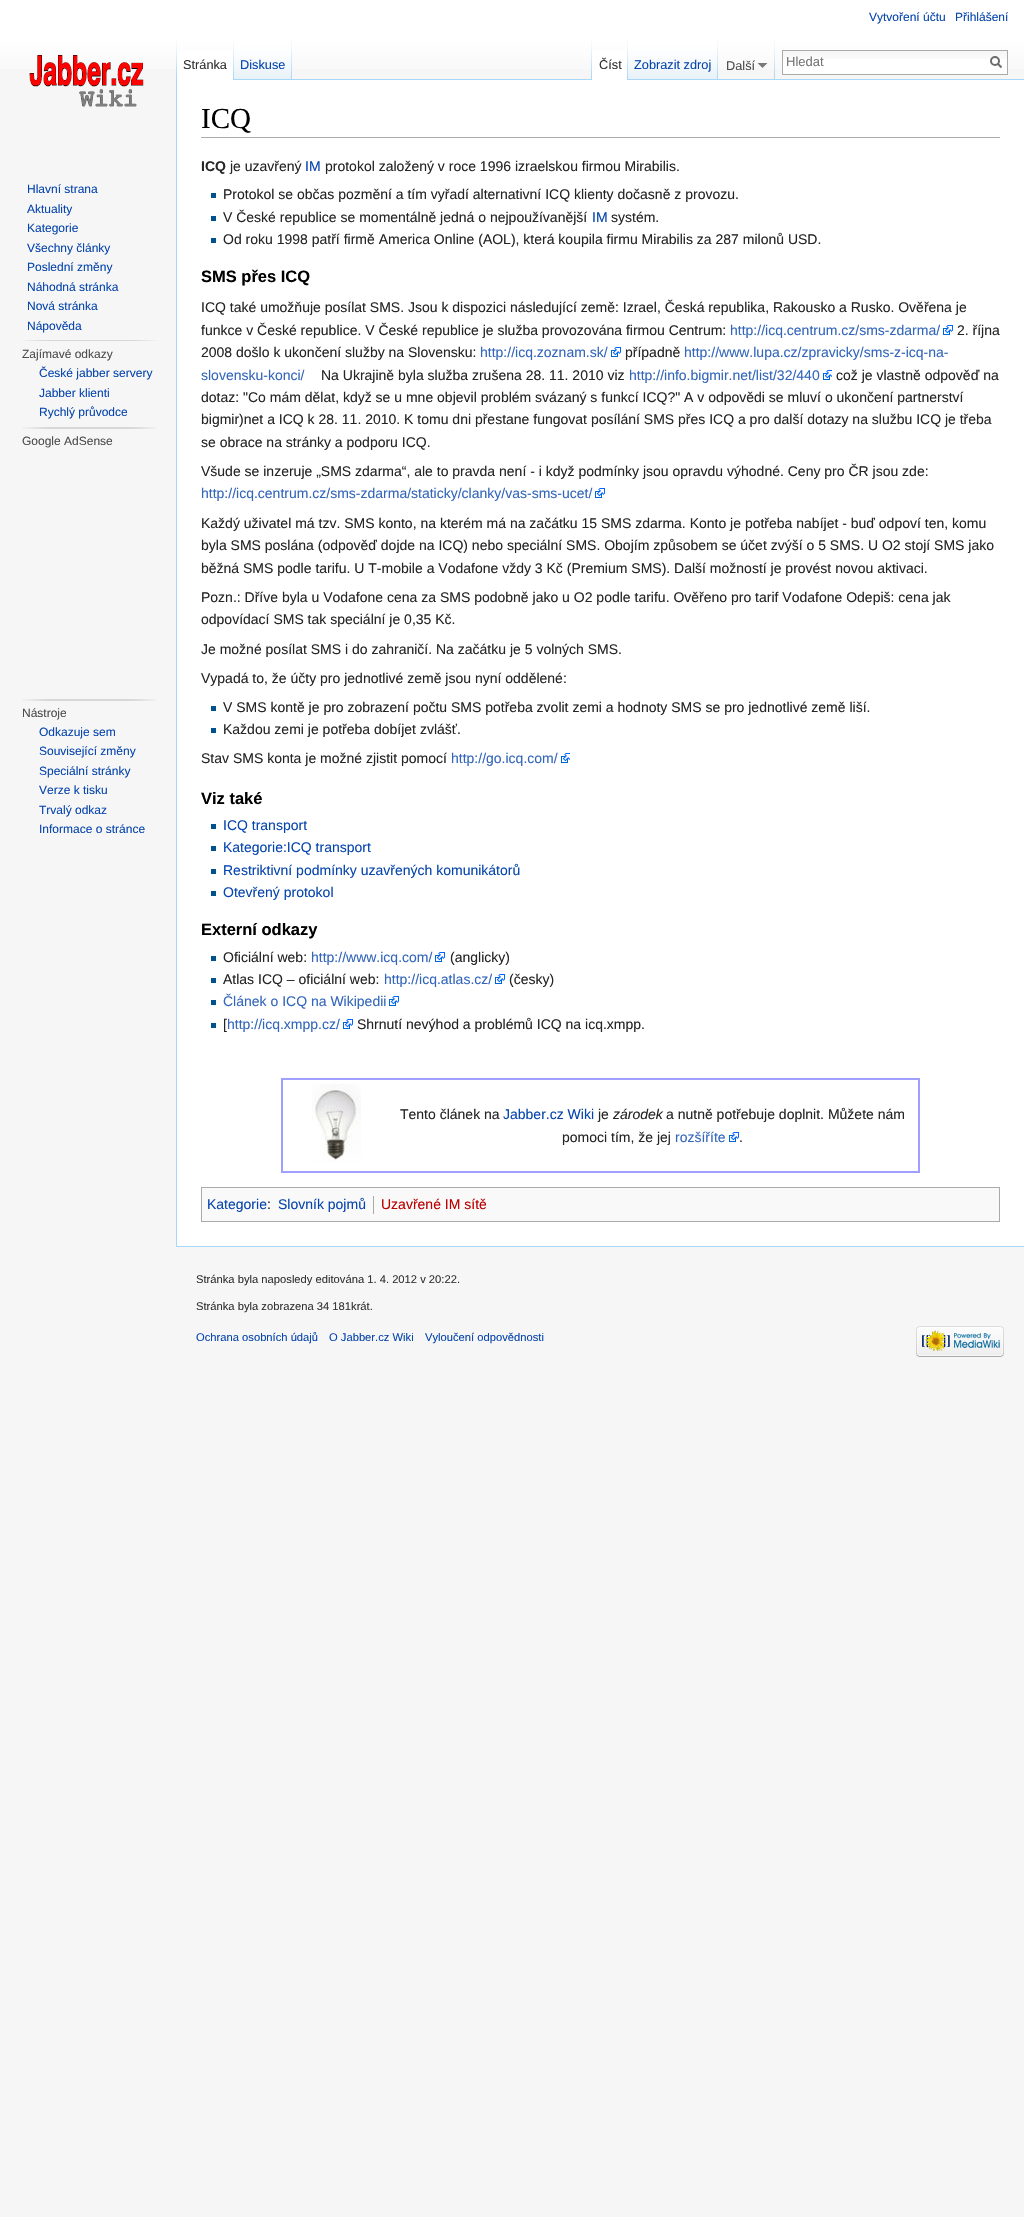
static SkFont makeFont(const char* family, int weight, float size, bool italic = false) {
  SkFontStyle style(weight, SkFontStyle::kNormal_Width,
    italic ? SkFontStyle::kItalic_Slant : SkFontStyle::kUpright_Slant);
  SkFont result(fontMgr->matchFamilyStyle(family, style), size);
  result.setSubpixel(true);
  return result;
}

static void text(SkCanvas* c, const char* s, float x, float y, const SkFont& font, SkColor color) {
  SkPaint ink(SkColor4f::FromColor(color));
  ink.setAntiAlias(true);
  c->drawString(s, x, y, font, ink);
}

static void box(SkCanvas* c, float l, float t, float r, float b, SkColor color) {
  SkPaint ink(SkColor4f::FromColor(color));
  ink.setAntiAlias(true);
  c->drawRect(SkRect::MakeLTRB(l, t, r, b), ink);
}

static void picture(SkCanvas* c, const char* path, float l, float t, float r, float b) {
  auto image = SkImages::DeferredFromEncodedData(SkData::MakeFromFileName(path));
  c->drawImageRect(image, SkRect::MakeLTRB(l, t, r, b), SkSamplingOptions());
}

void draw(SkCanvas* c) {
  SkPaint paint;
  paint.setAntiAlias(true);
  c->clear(0xfff6f6f6);
  {
    const SkColor colors[] = {0xffffffff, 0xfff6f6f6};
    const float stops[] = {0.5f, 1};
    const SkPoint ends[] = {{512, 0}, {512, 80}};
    paint.setShader(SkGradientShader::MakeLinear(ends, colors, stops, 2, SkTileMode::kClamp));
    paint.setAlpha(255);
  }
  c->drawRect(SkRect::MakeLTRB(0, 0, 1024, 69), paint);
  SkFont face1 = makeFont("Liberation Sans", 400, 12);
  text(c, "Vytvoření účtu", 869, 21, face1, 0xff0645ad);
  text(c, "Přihlášení", 955, 21, face1, 0xff0645ad);
  picture(c, "img_01.png", 176, 40, 177, 79);
  box(c, 177, 51, 233, 80, 0xffffffff);
  picture(c, "img_02.png", 233, 40, 234, 80);
  SkFont face2 = makeFont("Liberation Sans", 400, 12.75f);
  text(c, "Stránka", 183, 69, face2, 0xff333333);
  picture(c, "img_03.png", 234, 40, 292, 80);
  picture(c, "img_04.png", 291, 40, 292, 79);
  text(c, "Diskuse", 240, 69, face2, 0xff0645ad);
  picture(c, "img_01.png", 591, 40, 592, 79);
  box(c, 292, 79, 1024, 80, 0xffa7d7f9);
  box(c, 592, 51, 627, 80, 0xffffffff);
  picture(c, "img_02.png", 627, 40, 628, 80);
  text(c, "Číst", 599, 69, face2, 0xff333333);
  picture(c, "img_05.png", 628, 40, 718, 80);
  picture(c, "img_04.png", 717, 40, 718, 79);
  text(c, "Zobrazit zdroj", 634, 69, face2, 0xff0645ad);
  picture(c, "img_01.png", 774, 40, 775, 79);
  text(c, "Další", 726, 70, face2, 0xff4d4d4d);
  paint.setShader(nullptr);
  paint.setColor(0xff797979);
  c->drawPath(SkPathBuilder().moveTo(767.5f, 63).lineTo(762.5f, 68).lineTo(757.5f, 63).close().detach(), paint);
  box(c, 783, 59, 1007, 74, 0xffffffff);
  picture(c, "img_06.png", 783, 51, 1007, 59);
  paint.setStyle(SkPaint::kStroke_Style);
  paint.setStrokeWidth(1);
  paint.setColor(0xffaaaaaa);
  c->drawRect(SkRect::MakeLTRB(782.5f, 50.5f, 1007.5f, 74.5f), paint);
  SkFont face3 = makeFont("Liberation Sans", 400, 13);
  text(c, "Hledat", 786, 66, face3, 0xff757575);
  paint.setStrokeWidth(2);
  paint.setColor(0xff6c6c6c);
  c->drawPath(SkPathBuilder().moveTo(1001.5f, 67.5f).lineTo(997.5f, 63.5f).detach(), paint);
  c->drawCircle(995, 61, 4, paint);
  picture(c, "img_07.png", 29, 55, 144, 107);
  text(c, "Hlavní strana", 27, 193, face1, 0xff0645ad);
  text(c, "Aktuality", 27, 213, face1, 0xff0645ad);
  text(c, "Kategorie", 27, 232, face1, 0xff0645ad);
  text(c, "Všechny články", 27, 252, face1, 0xff0645ad);
  text(c, "Poslední změny", 27, 271, face1, 0xff0645ad);
  text(c, "Náhodná stránka", 27, 291, face1, 0xff0645ad);
  text(c, "Nová stránka", 27, 310, face1, 0xff0645ad);
  text(c, "Nápověda", 27, 330, face1, 0xff0645ad);
  picture(c, "img_08.png", 22, 340, 157, 341);
  text(c, "Zajímavé odkazy", 22, 358, face1, 0xff4d4d4d);
  text(c, "České jabber servery", 39, 377, face1, 0xff0645ad);
  text(c, "Jabber klienti", 39, 397, face1, 0xff0645ad);
  text(c, "Rychlý průvodce", 39, 416, face1, 0xff0645ad);
  picture(c, "img_09.png", 22, 427, 157, 429);
  text(c, "Google AdSense", 22, 445, face1, 0xff4d4d4d);
  picture(c, "img_09.png", 22, 699, 157, 701);
  text(c, "Nástroje", 22, 717, face1, 0xff4d4d4d);
  text(c, "Odkazuje sem", 39, 736, face1, 0xff0645ad);
  text(c, "Související změny", 39, 755, face1, 0xff0645ad);
  text(c, "Speciální stránky", 39, 775, face1, 0xff0645ad);
  text(c, "Verze k tisku", 39, 794, face1, 0xff0645ad);
  text(c, "Trvalý odkaz", 39, 814, face1, 0xff0645ad);
  text(c, "Informace o stránce", 39, 833, face1, 0xff0645ad);
  box(c, 177, 80, 1024, 1246, 0xffffffff);
  box(c, 176, 1246, 1024, 1247, 0xffa7d7f9);
  box(c, 176, 79, 177, 1247, 0xffa7d7f9);
  box(c, 201, 137, 1000, 138, 0xffaaaaaa);
  SkFont face4 = makeFont("Liberation Serif", 400, 29);
  text(c, "ICQ", 201, 128, face4, 0xff000000);
  SkFont face5 = makeFont("Liberation Sans", 700, 14);
  text(c, "ICQ", 201, 171, face5, 0xff252525);
  SkFont face6 = makeFont("Liberation Sans", 400, 14);
  text(c, "je uzavřený", 230, 171, face6, 0xff252525);
  text(c, "IM", 305, 171, face6, 0xff0645ad);
  text(c, "protokol založený v roce 1996 izraelskou firmou Mirabilis.", 325, 171, face6, 0xff252525);
  box(c, 211, 193, 216, 198, 0xff00528c);
  text(c, "Protokol se občas pozmění a tím vyřadí alternativní ICQ klienty dočasně z provozu.", 223, 199, face6, 0xff252525);
  box(c, 211, 216, 216, 221, 0xff00528c);
  text(c, "V České republice se momentálně jedná o nejpoužívanější", 223, 222, face6, 0xff252525);
  text(c, "IM", 592, 222, face6, 0xff0645ad);
  text(c, "systém.", 611, 222, face6, 0xff252525);
  box(c, 211, 238, 216, 243, 0xff00528c);
  text(c, "Od roku 1998 patří firmě America Online (AOL), která koupila firmu Mirabilis za 287 milonů USD.", 223, 244, face6, 0xff252525);
  SkFont face7 = makeFont("Liberation Sans", 700, 16.5f);
  text(c, "SMS přes ICQ", 201, 282, face7, 0xff000000);
  text(c, "ICQ také umožňuje posílat SMS. Jsou k dispozici následující země: Izrael, Česká republika, Rakousko a Rusko. Ověřena je", 201, 312, face6, 0xff252525);
  text(c, "funkce v České republice. V České republice je služba provozována firmou Centrum:", 201, 335, face6, 0xff252525);
  text(c, "http://icq.centrum.cz/sms-zdarma/", 730, 335, face6, 0xff3366bb);
  picture(c, "img_10.png", 943, 325, 953, 335);
  text(c, "2. října", 957, 335, face6, 0xff252525);
  text(c, "2008 došlo k ukončení služby na Slovensku:", 201, 357, face6, 0xff252525);
  text(c, "http://icq.zoznam.sk/", 480, 357, face6, 0xff3366bb);
  picture(c, "img_10.png", 611, 347, 621, 357);
  text(c, "případně", 625, 357, face6, 0xff252525);
  text(c, "http://www.lupa.cz/zpravicky/sms-z-icq-na-", 684, 357, face6, 0xff3366bb);
  text(c, "slovensku-konci/", 201, 380, face6, 0xff3366bb);
  text(c, "Na Ukrajině byla služba zrušena 28. 11. 2010 viz", 321, 380, face6, 0xff252525);
  text(c, "http://info.bigmir.net/list/32/440", 629, 380, face6, 0xff3366bb);
  picture(c, "img_11.png", 823, 370, 832, 380);
  text(c, "což je vlastně odpověď na", 836, 380, face6, 0xff252525);
  text(c, "dotaz: \"Co mám dělat, když se u mne objevil problém svázaný s funkcí ICQ?\" A v odpovědi se mluví o ukončení partnerství", 201, 402, face6, 0xff252525);
  text(c, "bigmir)net a ICQ k 28. 11. 2010. K tomu dni přestane fungovat posílání SMS přes ICQ a pro další dotazy na službu ICQ je třeba", 201, 424, face6, 0xff252525);
  text(c, "se obrace na stránky a podporu ICQ.", 201, 447, face6, 0xff252525);
  text(c, "Všude se inzeruje „SMS zdarma“, ale to pravda není - i když podmínky jsou opravdu výhodné. Ceny pro ČR jsou zde:", 201, 476, face6, 0xff252525);
  text(c, "http://icq.centrum.cz/sms-zdarma/staticky/clanky/vas-sms-ucet/", 201, 498, face6, 0xff3366bb);
  picture(c, "img_10.png", 595, 488, 605, 498);
  text(c, "Každý uživatel má tzv. SMS konto, na kterém má na začátku 15 SMS zdarma. Konto je potřeba nabíjet - buď odpoví ten, komu", 201, 528, face6, 0xff252525);
  text(c, "byla SMS poslána (odpověď dojde na ICQ) nebo speciální SMS. Obojím způsobem se účet zvýší o 5 SMS. U O2 stojí SMS jako", 201, 550, face6, 0xff252525);
  text(c, "běžná SMS podle tarifu. U T-mobile a Vodafone vždy 3 Kč (Premium SMS). Další možností je provést novou aktivaci.", 201, 573, face6, 0xff252525);
  text(c, "Pozn.: Dříve byla u Vodafone cena za SMS podobně jako u O2 podle tarifu. Ověřeno pro tarif Vodafone Odepiš: cena jak", 201, 602, face6, 0xff252525);
  text(c, "odpovídací SMS tak speciální je 0,35 Kč.", 201, 624, face6, 0xff252525);
  text(c, "Je možné posílat SMS i do zahraničí. Na začátku je 5 volných SMS.", 201, 654, face6, 0xff252525);
  text(c, "Vypadá to, že účty pro jednotlivé země jsou nyní oddělené:", 201, 683, face6, 0xff252525);
  box(c, 211, 706, 216, 711, 0xff00528c);
  text(c, "V SMS kontě je pro zobrazení počtu SMS potřeba zvolit zemi a hodnoty SMS se pro jednotlivé země liší.", 223, 712, face6, 0xff252525);
  box(c, 211, 728, 216, 733, 0xff00528c);
  text(c, "Každou zemi je potřeba dobíjet zvlášť.", 223, 734, face6, 0xff252525);
  text(c, "Stav SMS konta je možné zjistit pomocí", 201, 763, face6, 0xff252525);
  text(c, "http://go.icq.com/", 451, 763, face6, 0xff3366bb);
  picture(c, "img_11.png", 561, 753, 570, 763);
  text(c, "Viz také", 201, 804, face7, 0xff000000);
  box(c, 211, 824, 216, 829, 0xff00528c);
  text(c, "ICQ transport", 223, 830, face6, 0xff0645ad);
  box(c, 211, 846, 216, 851, 0xff00528c);
  text(c, "Kategorie:ICQ transport", 223, 852, face6, 0xff0645ad);
  box(c, 211, 869, 216, 874, 0xff00528c);
  text(c, "Restriktivní podmínky uzavřených komunikátorů", 223, 875, face6, 0xff0645ad);
  box(c, 211, 891, 216, 896, 0xff00528c);
  text(c, "Otevřený protokol", 223, 897, face6, 0xff0645ad);
  text(c, "Externí odkazy", 201, 935, face7, 0xff000000);
  box(c, 211, 956, 216, 961, 0xff00528c);
  text(c, "Oficiální web:", 223, 962, face6, 0xff252525);
  text(c, "http://www.icq.com/", 311, 962, face6, 0xff3366bb);
  picture(c, "img_10.png", 435, 952, 445, 962);
  text(c, "(anglicky)", 450, 962, face6, 0xff252525);
  box(c, 211, 978, 216, 983, 0xff00528c);
  text(c, "Atlas ICQ – oficiální web:", 223, 984, face6, 0xff252525);
  text(c, "http://icq.atlas.cz/", 384, 984, face6, 0xff3366bb);
  picture(c, "img_10.png", 495, 974, 505, 984);
  text(c, "(česky)", 509, 984, face6, 0xff252525);
  box(c, 211, 1000, 216, 1005, 0xff00528c);
  text(c, "Článek o ICQ na Wikipedii", 223, 1006, face6, 0xff3366bb);
  picture(c, "img_10.png", 389, 996, 399, 1006);
  box(c, 211, 1023, 216, 1028, 0xff00528c);
  text(c, "[", 223, 1029, face6, 0xff252525);
  text(c, "http://icq.xmpp.cz/", 227, 1029, face6, 0xff3366bb);
  picture(c, "img_10.png", 343, 1019, 353, 1029);
  text(c, "Shrnutí nevýhod a problémů ICQ na icq.xmpp.", 357, 1029, face6, 0xff252525);
  paint.setColor(0xff9f9fff);
  c->drawRect(SkRect::MakeLTRB(282, 1079, 919, 1172), paint);
  picture(c, "img_12.png", 312, 1083, 361, 1163);
  text(c, "Tento článek na", 400, 1119, face6, 0xff252525);
  text(c, "Jabber.cz Wiki", 503, 1119, face6, 0xff0645ad);
  text(c, "je", 598, 1119, face6, 0xff252525);
  SkFont face8 = makeFont("Liberation Sans", 400, 14, true);
  text(c, "zárodek", 613, 1119, face8, 0xff252525);
  text(c, "a nutně potřebuje doplnit. Můžete nám", 666, 1119, face6, 0xff252525);
  text(c, "pomoci tím, že jej", 562, 1142, face6, 0xff252525);
  text(c, "rozšíříte", 675, 1142, face6, 0xff3366bb);
  picture(c, "img_10.png", 729, 1132, 739, 1142);
  text(c, ".", 739, 1142, face6, 0xff252525);
  paint.setStyle(SkPaint::kFill_Style);
  paint.setColor(0xfff9f9f9);
  c->drawRect(SkRect::MakeLTRB(201.5f, 1187.5f, 999.5f, 1221.5f), paint);
  paint.setStyle(SkPaint::kStroke_Style);
  paint.setStrokeWidth(1);
  paint.setColor(0xffaaaaaa);
  c->drawRect(SkRect::MakeLTRB(201.5f, 1187.5f, 999.5f, 1221.5f), paint);
  text(c, "Kategorie", 207, 1209, face6, 0xff0645ad);
  text(c, ":", 267, 1209, face6, 0xff252525);
  text(c, "Slovník pojmů", 278, 1209, face6, 0xff0645ad);
  box(c, 373, 1196, 374, 1214, 0xffaaaaaa);
  text(c, "Uzavřené IM sítě", 381, 1209, face6, 0xffba0000);
  SkFont face9 = makeFont("Liberation Sans", 400, 11.2f);
  text(c, "Stránka byla naposledy editována 1. 4. 2012 v 20:22.", 196, 1283, face9, 0xff333333);
  text(c, "Stránka byla zobrazena 34 181krát.", 196, 1310, face9, 0xff333333);
  text(c, "Ochrana osobních údajů", 196, 1341, face9, 0xff0645ad);
  text(c, "O Jabber.cz Wiki", 329, 1341, face9, 0xff0645ad);
  text(c, "Vyloučení odpovědnosti", 425, 1341, face9, 0xff0645ad);
  picture(c, "img_13.png", 916, 1326, 1004, 1357);
}
